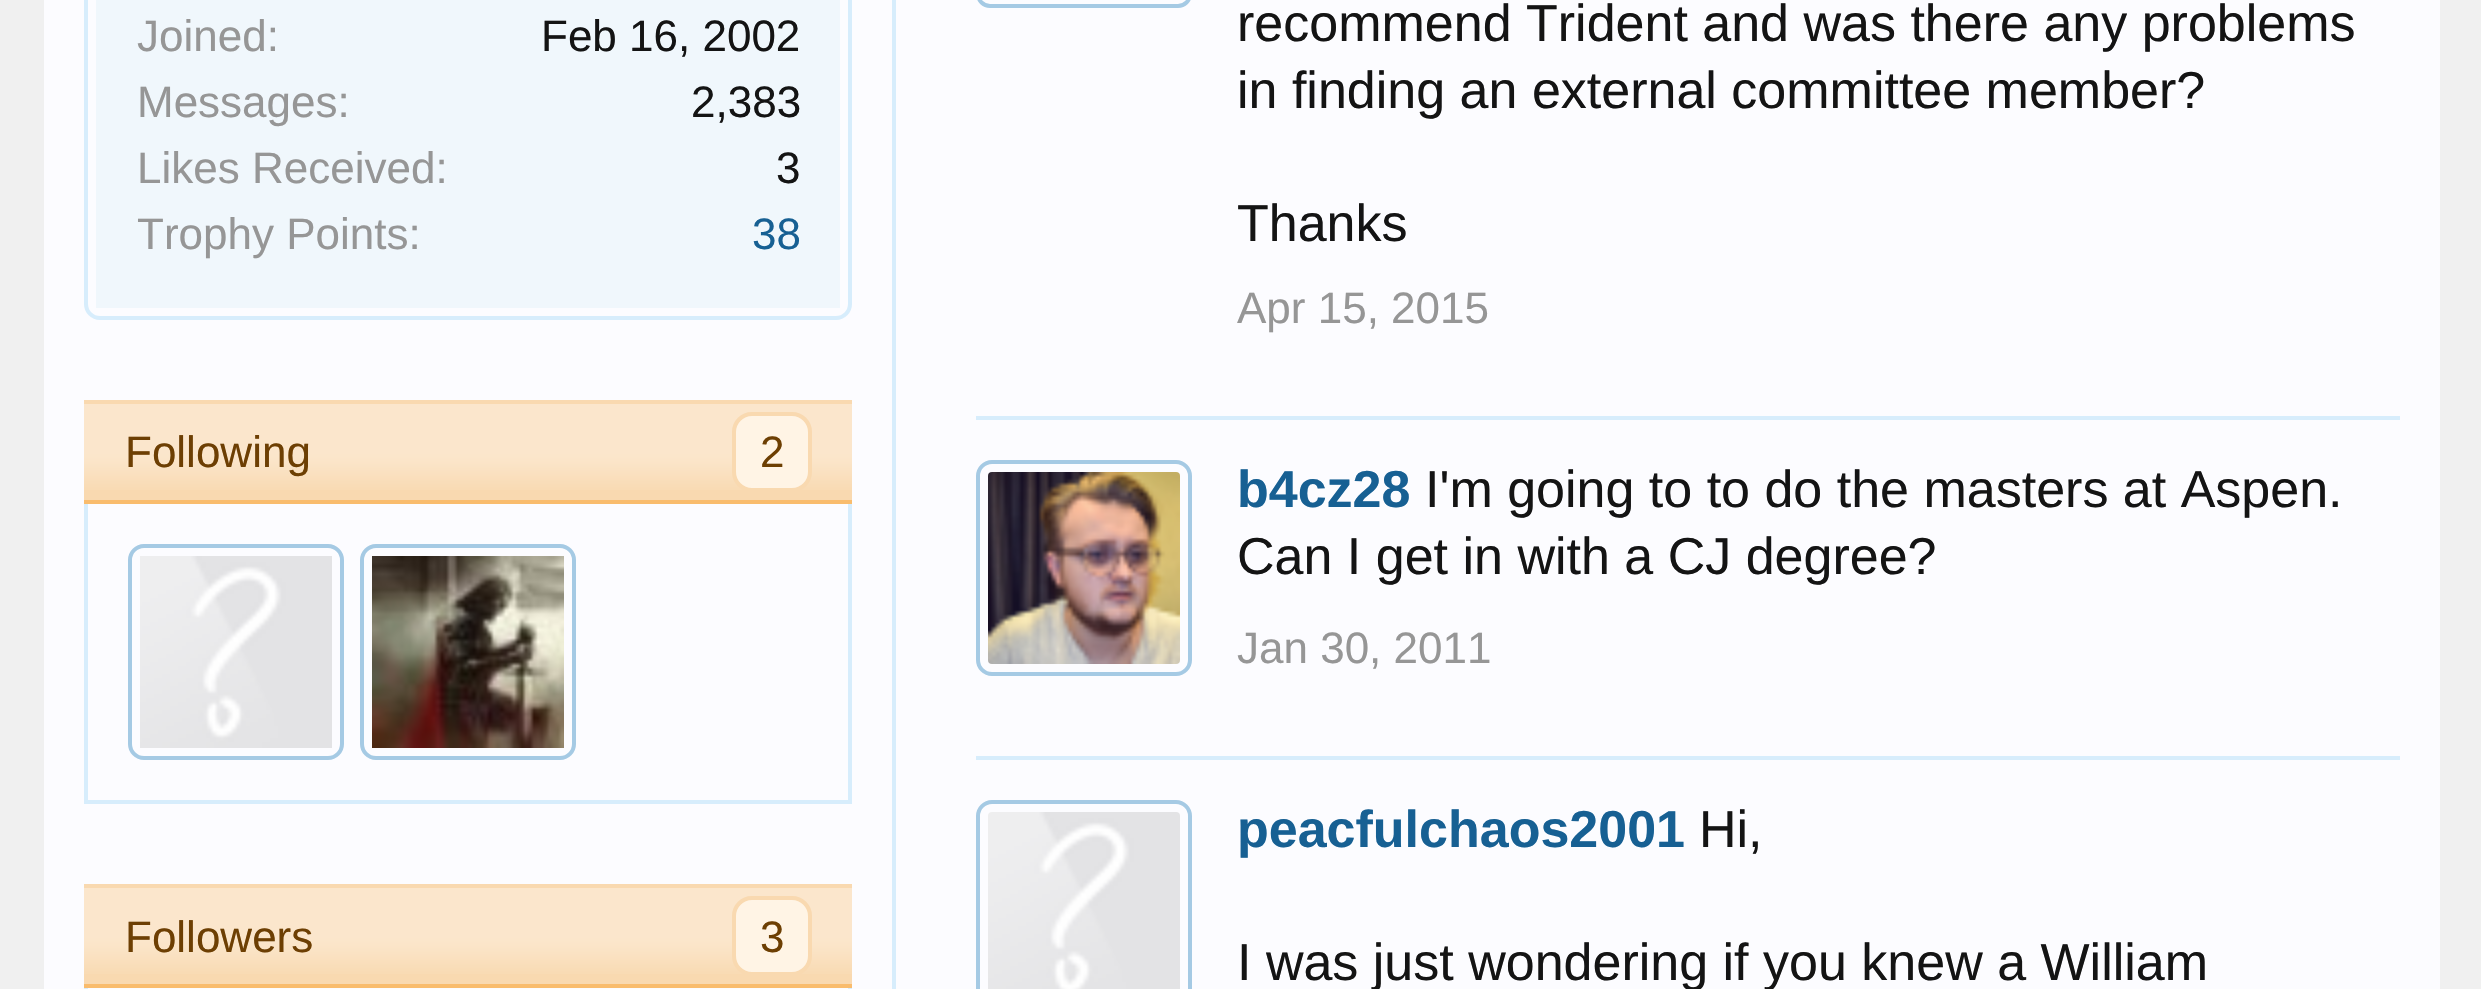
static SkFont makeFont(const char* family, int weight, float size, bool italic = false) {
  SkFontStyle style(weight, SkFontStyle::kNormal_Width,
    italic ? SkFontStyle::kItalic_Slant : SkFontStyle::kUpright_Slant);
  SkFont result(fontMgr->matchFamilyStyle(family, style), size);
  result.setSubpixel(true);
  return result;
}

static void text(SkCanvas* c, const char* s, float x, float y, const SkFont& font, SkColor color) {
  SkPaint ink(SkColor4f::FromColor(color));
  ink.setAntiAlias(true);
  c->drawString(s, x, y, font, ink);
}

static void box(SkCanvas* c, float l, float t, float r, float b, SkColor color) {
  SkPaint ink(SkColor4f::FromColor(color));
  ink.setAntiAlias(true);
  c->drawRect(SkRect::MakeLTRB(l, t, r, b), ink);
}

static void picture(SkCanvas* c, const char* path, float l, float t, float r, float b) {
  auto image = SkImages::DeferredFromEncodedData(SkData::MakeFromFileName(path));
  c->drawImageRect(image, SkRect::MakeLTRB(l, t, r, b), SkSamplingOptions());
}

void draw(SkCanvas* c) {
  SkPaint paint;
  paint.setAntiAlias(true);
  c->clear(0xfff0f0f0);
  box(c, 44, 0, 2440, 989, 0xfffcfcff);
  paint.setStyle(SkPaint::kStroke_Style);
  paint.setStrokeWidth(4);
  paint.setColor(0xffd7edfc);
  c->drawRoundRect(SkRect::MakeLTRB(86, -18, 850, 318), 14, 14, paint);
  box(c, 96, 0, 840, 308, 0xfff0f7fc);
  SkFont face1 = makeFont("Liberation Sans", 400, 44);
  text(c, "Joined:", 137, 51, face1, 0xff969696);
  text(c, "Feb 16, 2002", 541, 51, face1, 0xff141414);
  text(c, "Messages:", 137, 117, face1, 0xff969696);
  text(c, "2,383", 691, 117, face1, 0xff141414);
  text(c, "Likes Received:", 137, 183, face1, 0xff969696);
  text(c, "3", 776, 183, face1, 0xff141414);
  text(c, "Trophy Points:", 137, 249, face1, 0xff969696);
  text(c, "38", 752, 249, face1, 0xff176093);
  box(c, 84, 400, 852, 500, 0xfff9d9b0);
  picture(c, "img_01.png", 84, 404, 852, 490);
  box(c, 84, 500, 852, 504, 0xfff9bc6d);
  text(c, "Following", 125, 467, face1, 0xff6d3f03);
  paint.setStyle(SkPaint::kFill_Style);
  paint.setColor(0xfffff4e5);
  c->drawRoundRect(SkRect::MakeLTRB(734, 414, 810, 490), 18, 18, paint);
  paint.setStyle(SkPaint::kStroke_Style);
  paint.setColor(0xfff9d9b0);
  c->drawRoundRect(SkRect::MakeLTRB(734, 414, 810, 490), 18, 18, paint);
  text(c, "2", 760, 467, face1, 0xff6d3f03);
  box(c, 848, 504, 852, 804, 0xffd7edfc);
  box(c, 84, 800, 852, 804, 0xffd7edfc);
  box(c, 84, 504, 88, 804, 0xffd7edfc);
  picture(c, "img_02.png", 140, 556, 332, 748);
  paint.setColor(0xffa5cae4);
  c->drawRoundRect(SkRect::MakeLTRB(130, 546, 342, 758), 14, 14, paint);
  picture(c, "img_03.png", 372, 556, 564, 748);
  c->drawRoundRect(SkRect::MakeLTRB(362, 546, 574, 758), 14, 14, paint);
  box(c, 84, 884, 852, 984, 0xfff9d9b0);
  picture(c, "img_01.png", 84, 888, 852, 974);
  box(c, 84, 984, 852, 988, 0xfff9bc6d);
  text(c, "Followers", 125, 952, face1, 0xff6d3f03);
  paint.setStyle(SkPaint::kFill_Style);
  paint.setColor(0xfffff4e5);
  c->drawRoundRect(SkRect::MakeLTRB(734, 898, 810, 974), 18, 18, paint);
  paint.setStyle(SkPaint::kStroke_Style);
  paint.setColor(0xfff9d9b0);
  c->drawRoundRect(SkRect::MakeLTRB(734, 898, 810, 974), 18, 18, paint);
  text(c, "3", 760, 952, face1, 0xff6d3f03);
  box(c, 848, 988, 852, 989, 0xffd7edfc);
  box(c, 84, 988, 88, 989, 0xffd7edfc);
  box(c, 892, 0, 896, 989, 0xffd7edfc);
  box(c, 976, 416, 2400, 420, 0xffd7edfc);
  paint.setColor(0xffa5cae4);
  c->drawRoundRect(SkRect::MakeLTRB(978, -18, 1190, 6), 14, 14, paint);
  SkFont face2 = makeFont("Liberation Sans", 400, 52);
  text(c, "recommend Trident and was there any problems", 1237, 41, face2, 0xff141414);
  text(c, "in finding an external committee member?", 1237, 108, face2, 0xff141414);
  text(c, "Thanks", 1237, 241, face2, 0xff141414);
  text(c, "Apr 15, 2015", 1237, 323, face1, 0xff969696);
  box(c, 976, 756, 2400, 760, 0xffd7edfc);
  c->drawRoundRect(SkRect::MakeLTRB(978, 462, 1190, 674), 14, 14, paint);
  picture(c, "img_04.png", 988, 472, 1180, 664);
  SkFont face3 = makeFont("Liberation Sans", 700, 52);
  text(c, "b4cz28", 1237, 507, face3, 0xff176093);
  text(c, "I'm going to to do the masters at Aspen.", 1425, 507, face2, 0xff141414);
  text(c, "Can I get in with a CJ degree?", 1237, 574, face2, 0xff141414);
  text(c, "Jan 30, 2011", 1237, 663, face1, 0xff969696);
  c->drawRoundRect(SkRect::MakeLTRB(978, 802, 1190, 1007), 14, 14, paint);
  picture(c, "img_05.png", 988, 812, 1180, 989);
  text(c, "peacfulchaos2001", 1237, 847, face3, 0xff176093);
  text(c, "Hi,", 1699, 847, face2, 0xff141414);
  text(c, "I was just wondering if you knew a William", 1237, 980, face2, 0xff141414);
}
